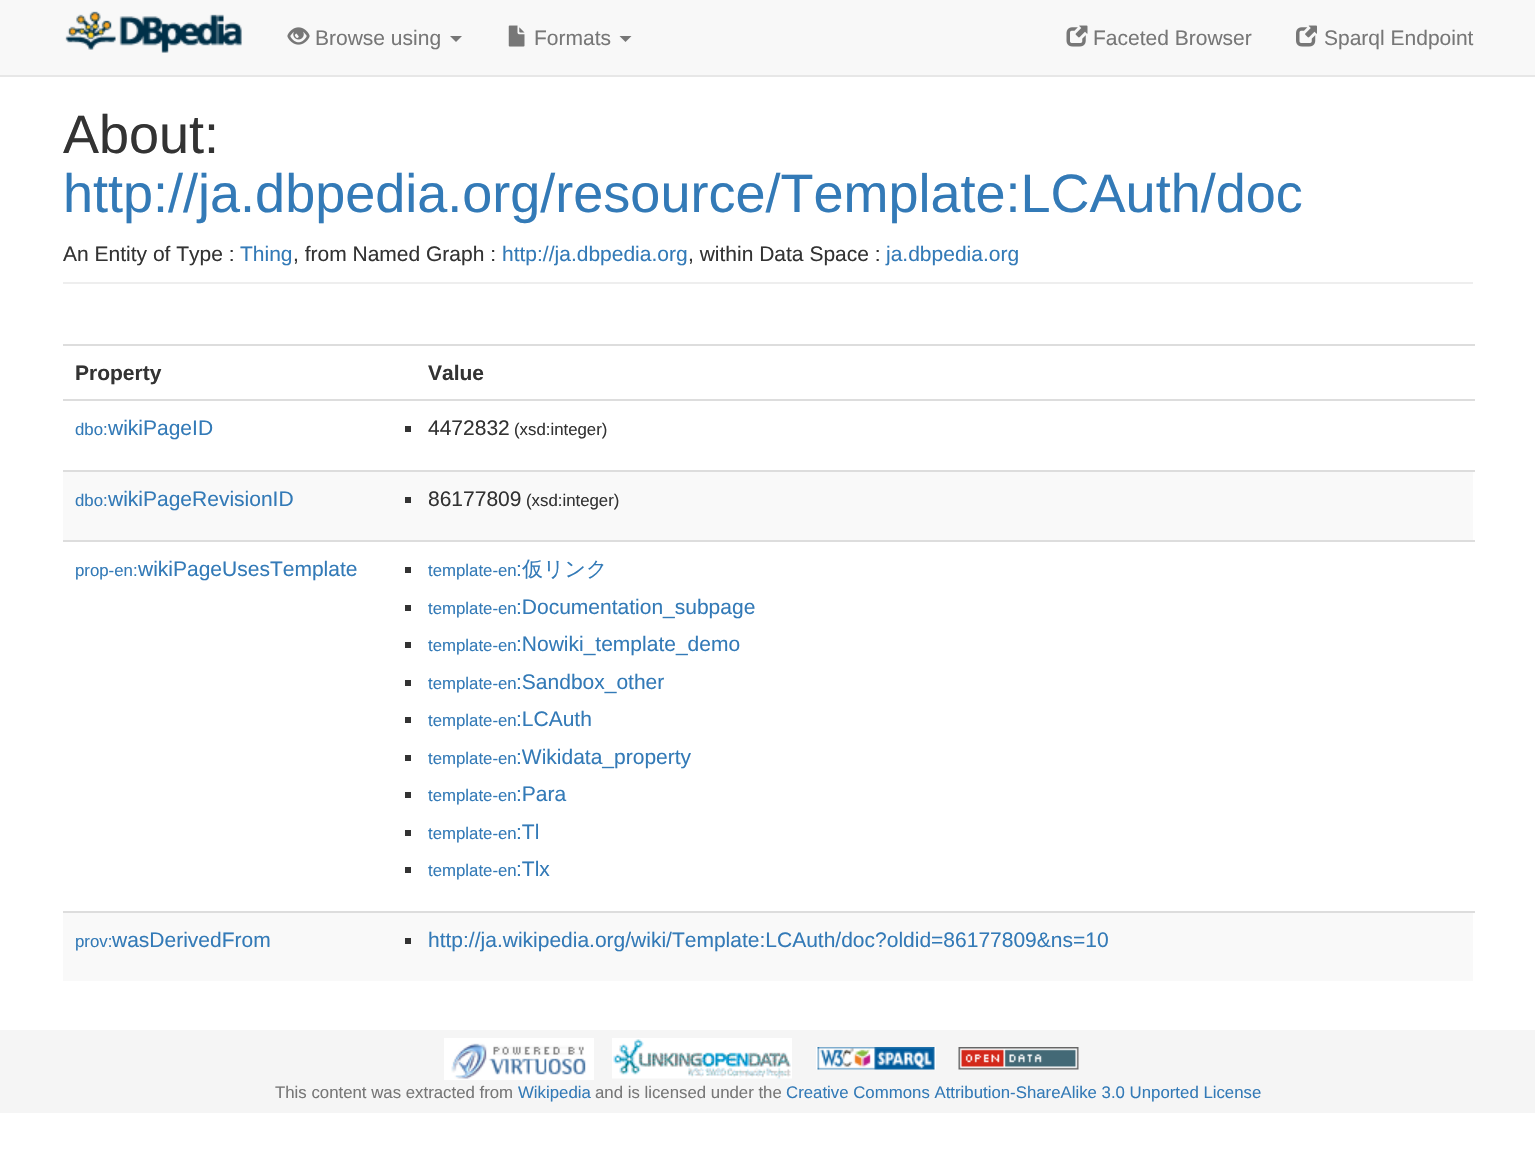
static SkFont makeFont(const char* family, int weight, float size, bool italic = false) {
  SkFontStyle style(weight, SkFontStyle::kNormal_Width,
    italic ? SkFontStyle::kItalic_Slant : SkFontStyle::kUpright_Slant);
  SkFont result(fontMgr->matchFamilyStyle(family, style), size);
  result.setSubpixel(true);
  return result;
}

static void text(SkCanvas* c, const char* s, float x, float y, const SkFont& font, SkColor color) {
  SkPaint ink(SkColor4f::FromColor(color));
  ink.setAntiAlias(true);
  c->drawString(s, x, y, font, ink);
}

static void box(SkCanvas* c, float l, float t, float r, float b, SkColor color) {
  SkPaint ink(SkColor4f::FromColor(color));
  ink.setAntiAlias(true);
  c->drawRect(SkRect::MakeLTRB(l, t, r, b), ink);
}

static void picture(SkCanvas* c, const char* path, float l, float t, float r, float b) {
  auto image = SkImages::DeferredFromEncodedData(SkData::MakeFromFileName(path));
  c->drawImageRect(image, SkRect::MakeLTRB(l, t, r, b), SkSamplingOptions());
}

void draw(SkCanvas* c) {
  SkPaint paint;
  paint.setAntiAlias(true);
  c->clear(0xffffffff);
  box(c, 0, 0, 1535, 75, 0xfff8f8f8);
  box(c, 0, 75, 1535, 77, 0xffe7e7e7);
  picture(c, "img_01.png", 65, 11, 242, 53);
  picture(c, "img_02.png", 287, 27, 310, 45);
  SkFont face1 = makeFont("Liberation Sans", 400, 21);
  text(c, "Browse using", 315, 45, face1, 0xff777777);
  paint.setColor(0xff777777);
  c->drawPath(SkPathBuilder().moveTo(450, 36).lineTo(462, 36).lineTo(456, 42).close().detach(), paint);
  picture(c, "img_03.png", 508, 25, 525, 47);
  text(c, "Formats", 534, 45, face1, 0xff777777);
  c->drawPath(SkPathBuilder().moveTo(619.5f, 36).lineTo(631.5f, 36).lineTo(625.5f, 42).close().detach(), paint);
  picture(c, "img_04.png", 1066, 25, 1088, 47);
  text(c, "Faceted Browser", 1093, 45, face1, 0xff777777);
  picture(c, "img_05.png", 1296, 25, 1317, 47);
  text(c, "Sparql Endpoint", 1324, 45, face1, 0xff777777);
  box(c, 63, 282, 1473, 284, 0xffeeeeee);
  SkFont face2 = makeFont("Liberation Sans", 400, 54);
  text(c, "About:", 63, 153, face2, 0xff333333);
  text(c, "http://ja.dbpedia.org/resource/Template:LCAuth/doc", 63, 212, face2, 0xff337ab7);
  text(c, "An Entity of Type :", 63, 261, face1, 0xff333333);
  text(c, "Thing", 240, 261, face1, 0xff337ab7);
  text(c, ", from Named Graph :", 293, 261, face1, 0xff333333);
  text(c, "http://ja.dbpedia.org", 502, 261, face1, 0xff337ab7);
  text(c, ", within Data Space :", 688, 261, face1, 0xff333333);
  text(c, "ja.dbpedia.org", 886, 261, face1, 0xff337ab7);
  SkFont face3 = makeFont("Liberation Sans", 700, 21);
  text(c, "Property", 75, 380, face3, 0xff333333);
  box(c, 63, 344, 1475, 346, 0xffdddddd);
  text(c, "Value", 428, 380, face3, 0xff333333);
  SkFont face4 = makeFont("Liberation Sans", 400, 16.8f);
  text(c, "dbo:", 75, 435, face4, 0xff337ab7);
  text(c, "wikiPageID", 108, 435, face1, 0xff337ab7);
  box(c, 63, 399, 1475, 401, 0xffdddddd);
  box(c, 405, 426, 411, 432, 0xff333333);
  text(c, "4472832", 428, 435, face1, 0xff333333);
  text(c, "(xsd:integer)", 514, 435, face4, 0xff333333);
  box(c, 63, 472, 1473, 540, 0xfff9f9f9);
  text(c, "dbo:", 75, 506, face4, 0xff337ab7);
  text(c, "wikiPageRevisionID", 108, 506, face1, 0xff337ab7);
  box(c, 63, 470, 1475, 472, 0xffdddddd);
  box(c, 405, 497, 411, 503, 0xff333333);
  text(c, "86177809", 428, 506, face1, 0xff333333);
  text(c, "(xsd:integer)", 526, 506, face4, 0xff333333);
  text(c, "prop-en:", 75, 576, face4, 0xff337ab7);
  text(c, "wikiPageUsesTemplate", 138, 576, face1, 0xff337ab7);
  box(c, 63, 540, 1475, 542, 0xffdddddd);
  box(c, 405, 567, 411, 573, 0xff333333);
  text(c, "template-en", 428, 576, face4, 0xff337ab7);
  text(c, ":", 516, 576, face1, 0xff337ab7);
  SkFont face5 = makeFont("WenQuanYi Zen Hei", 500, 21);
  text(c, "仮リンク", 522, 576, face5, 0xff337ab7);
  box(c, 405, 605, 411, 611, 0xff333333);
  text(c, "template-en", 428, 614, face4, 0xff337ab7);
  text(c, ":Documentation_subpage", 516, 614, face1, 0xff337ab7);
  box(c, 405, 642, 411, 648, 0xff333333);
  text(c, "template-en", 428, 651, face4, 0xff337ab7);
  text(c, ":Nowiki_template_demo", 516, 651, face1, 0xff337ab7);
  box(c, 405, 680, 411, 686, 0xff333333);
  text(c, "template-en", 428, 689, face4, 0xff337ab7);
  text(c, ":Sandbox_other", 516, 689, face1, 0xff337ab7);
  box(c, 405, 717, 411, 723, 0xff333333);
  text(c, "template-en", 428, 726, face4, 0xff337ab7);
  text(c, ":LCAuth", 516, 726, face1, 0xff337ab7);
  box(c, 405, 755, 411, 761, 0xff333333);
  text(c, "template-en", 428, 764, face4, 0xff337ab7);
  text(c, ":Wikidata_property", 516, 764, face1, 0xff337ab7);
  box(c, 405, 792, 411, 798, 0xff333333);
  text(c, "template-en", 428, 801, face4, 0xff337ab7);
  text(c, ":Para", 516, 801, face1, 0xff337ab7);
  box(c, 405, 830, 411, 836, 0xff333333);
  text(c, "template-en", 428, 839, face4, 0xff337ab7);
  text(c, ":Tl", 516, 839, face1, 0xff337ab7);
  box(c, 405, 867, 411, 873, 0xff333333);
  text(c, "template-en", 428, 876, face4, 0xff337ab7);
  text(c, ":Tlx", 516, 876, face1, 0xff337ab7);
  box(c, 63, 913, 1473, 981, 0xfff9f9f9);
  text(c, "prov:", 75, 947, face4, 0xff337ab7);
  text(c, "wasDerivedFrom", 112, 947, face1, 0xff337ab7);
  box(c, 63, 911, 1475, 913, 0xffdddddd);
  box(c, 405, 938, 411, 944, 0xff333333);
  text(c, "http://ja.wikipedia.org/wiki/Template:LCAuth/doc?oldid=86177809&ns=10", 428, 947, face1, 0xff337ab7);
  box(c, 0, 1030, 1535, 1113, 0xfff5f5f5);
  picture(c, "img_06.png", 444, 1038, 594, 1080);
  picture(c, "img_07.png", 612, 1038, 792, 1079);
  picture(c, "img_08.png", 816, 1047, 936, 1070);
  picture(c, "img_09.png", 958, 1047, 1079, 1070);
  text(c, "This content was extracted from", 275, 1098, face4, 0xff777777);
  text(c, "Wikipedia", 518, 1098, face4, 0xff337ab7);
  text(c, "and is licensed under the", 595, 1098, face4, 0xff777777);
  text(c, "Creative Commons Attribution-ShareAlike 3.0 Unported License", 786, 1098, face4, 0xff337ab7);
}
